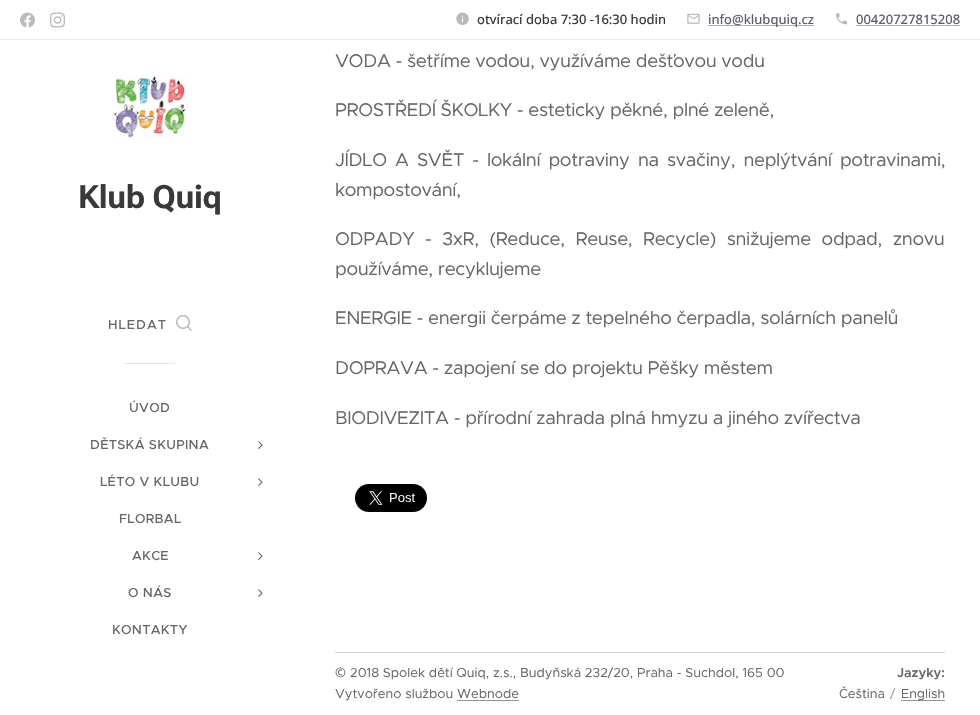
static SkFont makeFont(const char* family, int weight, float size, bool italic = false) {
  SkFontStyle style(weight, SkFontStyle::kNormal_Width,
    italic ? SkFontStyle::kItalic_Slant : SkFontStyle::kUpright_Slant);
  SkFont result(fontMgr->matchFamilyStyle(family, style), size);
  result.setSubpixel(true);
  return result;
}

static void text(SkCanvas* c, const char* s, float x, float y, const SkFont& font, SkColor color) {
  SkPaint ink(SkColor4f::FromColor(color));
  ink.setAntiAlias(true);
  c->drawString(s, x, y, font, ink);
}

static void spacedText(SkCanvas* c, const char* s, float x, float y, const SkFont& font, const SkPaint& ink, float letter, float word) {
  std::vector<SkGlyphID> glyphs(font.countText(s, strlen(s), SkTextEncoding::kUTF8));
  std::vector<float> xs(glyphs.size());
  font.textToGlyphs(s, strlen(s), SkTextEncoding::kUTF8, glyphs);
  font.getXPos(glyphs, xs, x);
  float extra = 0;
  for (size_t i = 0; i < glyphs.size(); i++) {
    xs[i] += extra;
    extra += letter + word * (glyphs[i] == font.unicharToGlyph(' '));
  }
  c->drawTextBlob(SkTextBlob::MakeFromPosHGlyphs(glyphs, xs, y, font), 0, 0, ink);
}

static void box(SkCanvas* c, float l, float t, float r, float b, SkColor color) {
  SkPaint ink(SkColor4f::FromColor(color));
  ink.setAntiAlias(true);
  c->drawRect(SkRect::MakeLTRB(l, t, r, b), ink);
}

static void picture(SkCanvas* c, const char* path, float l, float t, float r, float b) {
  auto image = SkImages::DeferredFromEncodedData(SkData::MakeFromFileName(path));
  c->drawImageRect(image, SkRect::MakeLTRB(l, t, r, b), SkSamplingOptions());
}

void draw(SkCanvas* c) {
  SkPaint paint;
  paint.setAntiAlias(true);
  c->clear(0xffffffff);
  picture(c, "img_01.png", 20, 12, 35, 28);
  picture(c, "img_02.png", 50, 12, 65, 28);
  picture(c, "img_03.png", 456, 12, 469, 25);
  SkFont face1 = makeFont("Open Sans", 500, 13);
  text(c, "otvírací doba 7:30 -16:30 hodin", 477, 24, face1, 0xff393939);
  picture(c, "img_04.png", 687, 13, 700, 24);
  box(c, 708, 25, 814, 26, 0xffafacba);
  text(c, "info@klubquiq.cz", 708, 24, face1, 0xff5f5974);
  picture(c, "img_05.png", 835, 13, 848, 25);
  text(c, "00420727815208", 856, 24, face1, 0xff5f5974);
  box(c, 856, 25, 960, 26, 0xffafacba);
  box(c, 0, 39, 980, 40, 0xffe8e8e8);
  picture(c, "img_06.png", 113, 75, 188, 140);
  SkFont face2 = makeFont("Roboto Flex", 700, 32);
  paint.setColor(0xff393939);
  spacedText(c, "Klub Quiq", 78, 208, face2, paint, -0.37f, 0);
  SkFont face3 = makeFont("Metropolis", 500, 13);
  paint.setColor(0xff666666);
  spacedText(c, "HLEDAT", 108, 329, face3, paint, 1, 0);
  picture(c, "img_07.png", 176, 315, 192, 331);
  box(c, 125, 363, 175, 364, 0xffe6e6e6);
  spacedText(c, "ÚVOD", 129, 412, face3, paint, 0.3f, 0);
  spacedText(c, "DĚTSKÁ SKUPINA", 90, 449, face3, paint, 0.3f, 0);
  picture(c, "img_08.png", 258, 441, 263, 449);
  spacedText(c, "LÉTO V KLUBU", 100, 486, face3, paint, 0.3f, 0);
  picture(c, "img_08.png", 258, 478, 263, 486);
  spacedText(c, "FLORBAL", 119, 523, face3, paint, 0.3f, 0);
  spacedText(c, "AKCE", 132, 560, face3, paint, 0.3f, 0);
  picture(c, "img_08.png", 258, 552, 263, 560);
  spacedText(c, "O NÁS", 128, 597, face3, paint, 0.3f, 0);
  picture(c, "img_08.png", 258, 589, 263, 597);
  spacedText(c, "KONTAKTY", 112, 634, face3, paint, 0.3f, 0);
  SkFont face4 = makeFont("Metropolis", 400, 18.5f);
  spacedText(c, "VODA - šetříme vodou, využíváme dešťovou vodu", 335, 67, face4, paint, -0.37f, 0);
  spacedText(c, "PROSTŘEDÍ ŠKOLKY - esteticky pěkné, plné zeleně,", 335, 116, face4, paint, -0.37f, 0);
  spacedText(c, "JÍDLO A SVĚT - lokální potraviny na svačiny, neplýtvání potravinami,", 335, 166, face4, paint, -0.37f, 3.25f);
  spacedText(c, "kompostování,", 335, 196, face4, paint, -0.37f, 0);
  spacedText(c, "ODPADY - 3xR, (Reduce, Reuse, Recycle) snižujeme odpad, znovu", 335, 245, face4, paint, -0.37f, 5.75f);
  spacedText(c, "používáme, recyklujeme", 335, 275, face4, paint, -0.37f, 0);
  spacedText(c, "ENERGIE - energii čerpáme z tepelného čerpadla, solárních panelů", 335, 324, face4, paint, -0.37f, 0);
  spacedText(c, "DOPRAVA - zapojení se do projektu Pěšky městem", 335, 374, face4, paint, -0.37f, 0);
  spacedText(c, "BIODIVEZITA - přírodní zahrada plná hmyzu a jiného zvířectva", 335, 424, face4, paint, -0.37f, 0);
  picture(c, "img_09.png", 355, 484, 427, 512);
  box(c, 335, 652, 945, 653, 0xffd4d4d4);
  SkFont face5 = makeFont("Noto Sans", 400, 13);
  text(c, "©", 335, 677, face5, 0xff666666);
  SkFont face6 = makeFont("Metropolis", 400, 13);
  text(c, "2018 Spolek dětí Quiq, z.s., Budyňská 232/20, Praha - Suchdol, 165 00", 350, 677, face6, 0xff666666);
  text(c, "Vytvořeno službou Webnode", 335, 698, face6, 0xff666666);
  box(c, 457, 700, 519, 701, 0xff949494);
  SkFont face7 = makeFont("Metropolis", 600, 13);
  text(c, "Jazyky:", 897, 677, face7, 0xff666666);
  text(c, "Čeština", 839, 698, face6, 0xff666666);
  text(c, "/", 890, 698, face6, 0xff9d9d9d);
  box(c, 901, 700, 945, 701, 0xff949494);
  text(c, "English", 901, 698, face6, 0xff666666);
}
